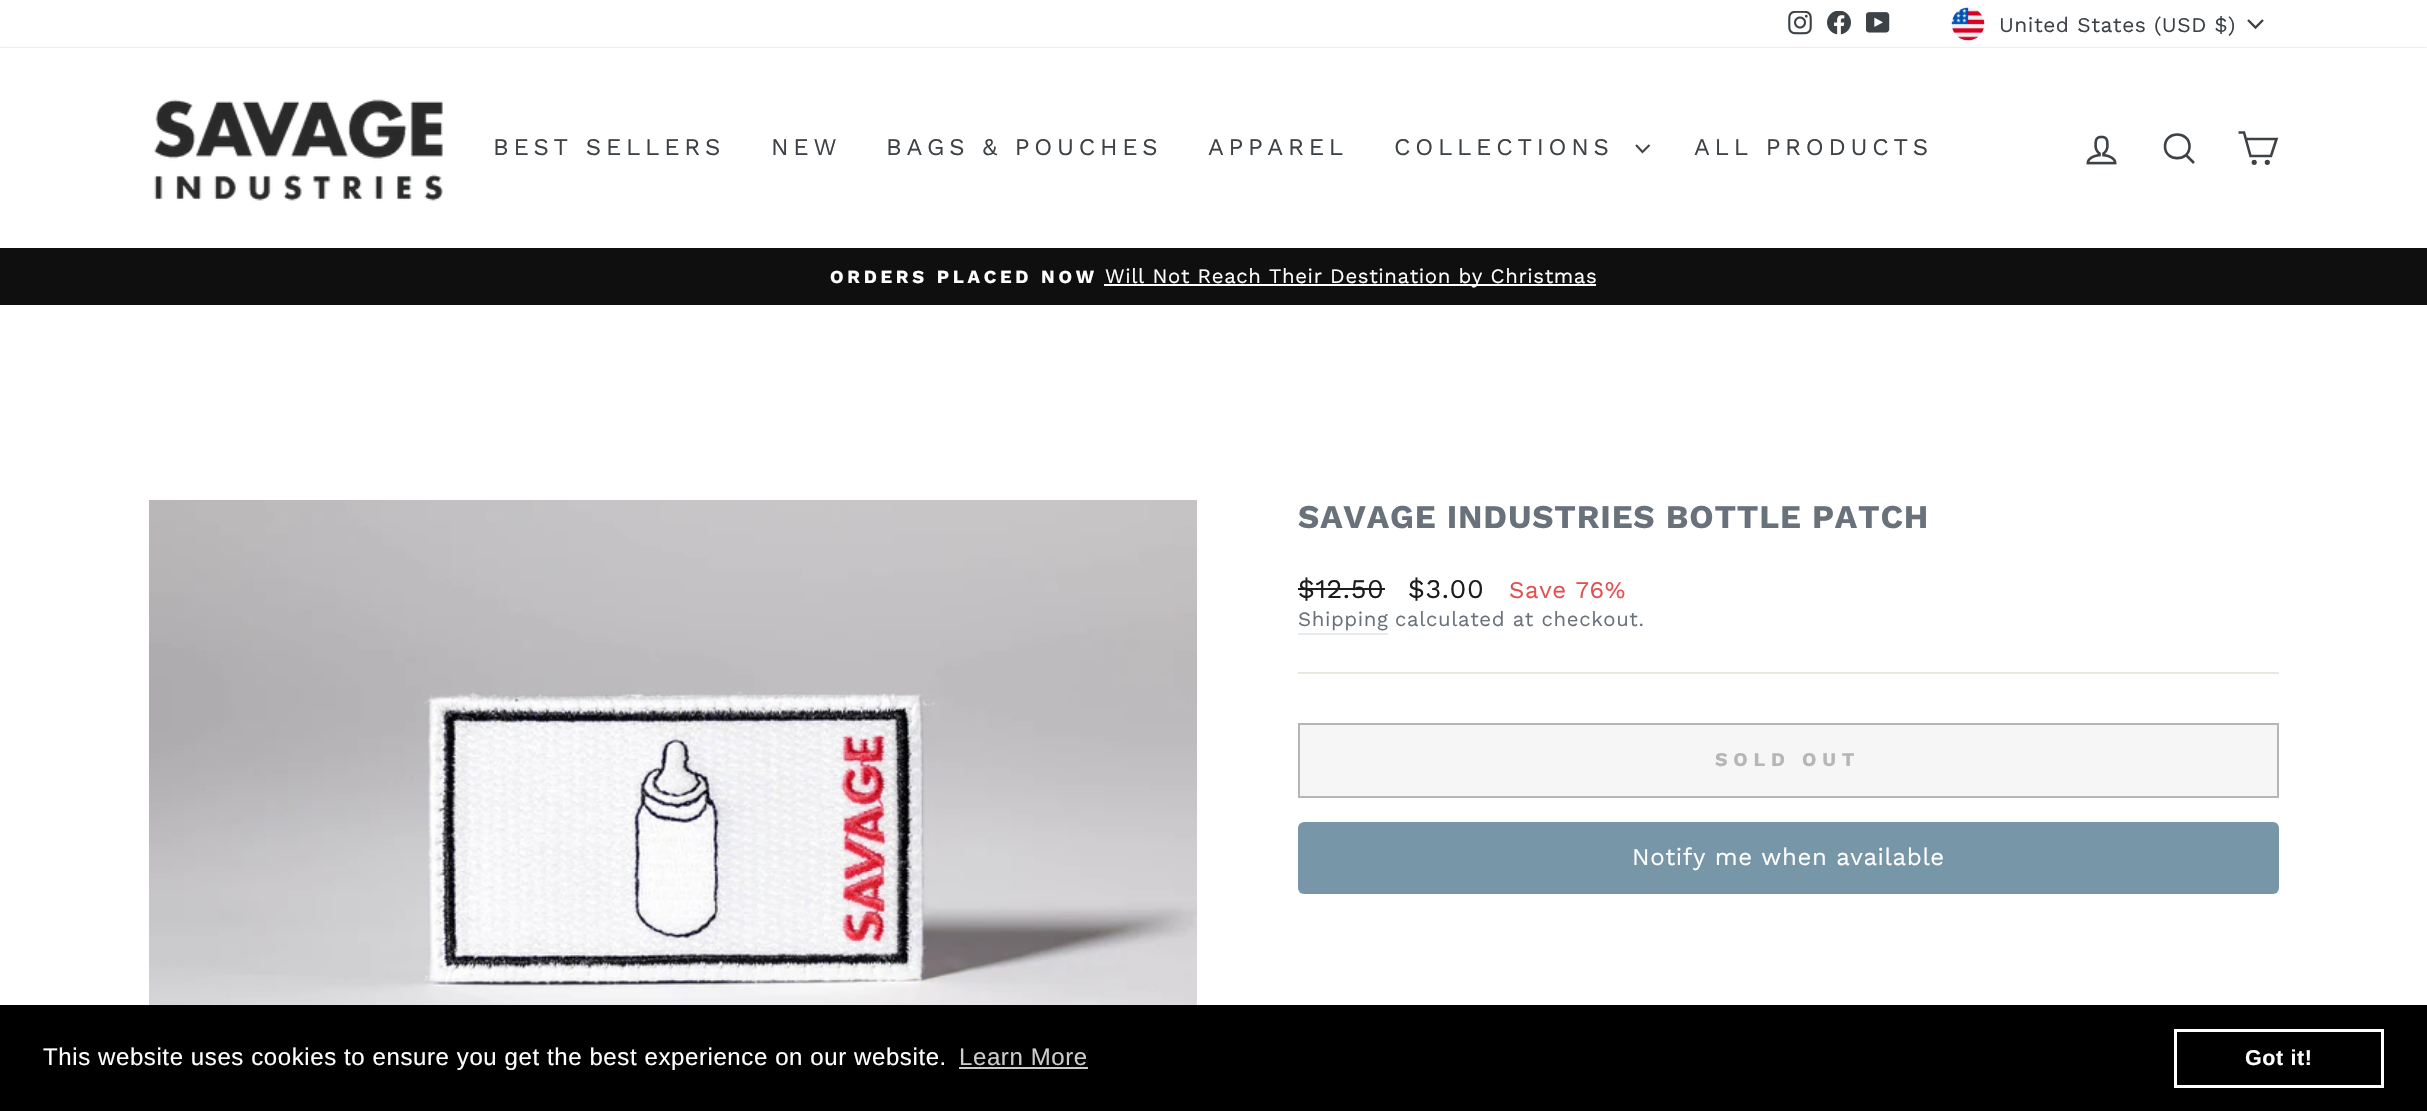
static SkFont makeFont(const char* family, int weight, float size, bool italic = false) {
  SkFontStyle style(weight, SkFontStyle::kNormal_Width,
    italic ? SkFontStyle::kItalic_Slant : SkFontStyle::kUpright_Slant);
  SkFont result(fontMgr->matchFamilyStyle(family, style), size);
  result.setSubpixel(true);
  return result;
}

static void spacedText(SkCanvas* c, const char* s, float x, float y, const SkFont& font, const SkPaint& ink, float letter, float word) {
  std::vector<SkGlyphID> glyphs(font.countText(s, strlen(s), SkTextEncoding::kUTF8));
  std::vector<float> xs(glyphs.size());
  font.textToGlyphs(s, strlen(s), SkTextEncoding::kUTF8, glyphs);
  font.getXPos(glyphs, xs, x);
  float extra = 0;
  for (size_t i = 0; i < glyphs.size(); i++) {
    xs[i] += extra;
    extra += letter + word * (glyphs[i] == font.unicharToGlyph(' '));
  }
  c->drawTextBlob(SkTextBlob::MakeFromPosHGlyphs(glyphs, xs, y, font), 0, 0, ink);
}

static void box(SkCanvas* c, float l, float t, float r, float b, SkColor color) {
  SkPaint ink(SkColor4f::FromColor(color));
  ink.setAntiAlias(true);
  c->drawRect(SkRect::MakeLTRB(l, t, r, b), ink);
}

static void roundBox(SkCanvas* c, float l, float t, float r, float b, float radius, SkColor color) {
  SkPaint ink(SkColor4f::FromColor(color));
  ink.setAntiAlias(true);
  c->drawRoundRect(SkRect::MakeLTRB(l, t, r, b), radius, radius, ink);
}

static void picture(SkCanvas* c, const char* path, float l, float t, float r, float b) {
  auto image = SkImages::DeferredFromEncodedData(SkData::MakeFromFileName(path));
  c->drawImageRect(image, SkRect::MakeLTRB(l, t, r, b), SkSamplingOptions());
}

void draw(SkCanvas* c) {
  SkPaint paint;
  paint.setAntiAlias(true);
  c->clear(0xffffffff);
  picture(c, "img_01.png", 1788, 11, 1812, 35);
  picture(c, "img_02.png", 1827, 11, 1851, 35);
  picture(c, "img_03.png", 1866, 12, 1890, 33);
  picture(c, "img_04.png", 1951, 7, 1985, 41);
  SkFont face1 = makeFont("Work Sans", 400, 21);
  paint.setColor(0xff3d4246);
  spacedText(c, "United States (USD $)", 1999, 32, face1, paint, 0.5f, 0);
  paint.setStyle(SkPaint::kStroke_Style);
  paint.setStrokeWidth(2.4f);
  c->drawPath(SkPathBuilder().moveTo(2248, 20).lineTo(2255.5f, 27.5f).lineTo(2263, 20).detach(), paint);
  box(c, 0, 248, 2427, 305, 0xff0f0f0f);
  paint.setStyle(SkPaint::kFill_Style);
  paint.setColor(0x33000000);
  paint.setMaskFilter(SkMaskFilter::MakeBlur(kNormal_SkBlurStyle, 1));
  c->drawRect(SkRect::MakeLTRB(0, 48, 2427, 248), paint);
  paint.setMaskFilter(nullptr);
  box(c, 0, 48, 2427, 248, 0xffffffff);
  picture(c, "img_05.png", 154, 99, 443, 201);
  SkFont face2 = makeFont("Work Sans", 400, 24);
  paint.setColor(0xff3d4246);
  spacedText(c, "BEST SELLERS", 493, 155, face2, paint, 4.75f, 0);
  spacedText(c, "NEW", 771, 155, face2, paint, 4.75f, 0);
  spacedText(c, "BAGS & POUCHES", 886, 155, face2, paint, 4.75f, 0);
  spacedText(c, "APPAREL", 1208, 155, face2, paint, 4.75f, 0);
  spacedText(c, "COLLECTIONS", 1394, 155, face2, paint, 4.75f, 0);
  paint.setStyle(SkPaint::kStroke_Style);
  paint.setStrokeWidth(2.1f);
  c->drawPath(SkPathBuilder().moveTo(1636, 145).lineTo(1642.5f, 152).lineTo(1649.5f, 145).detach(), paint);
  paint.setStyle(SkPaint::kFill_Style);
  spacedText(c, "ALL PRODUCTS", 1694, 155, face2, paint, 4.75f, 0);
  picture(c, "img_06.png", 2086, 135, 2117, 165);
  paint.setStyle(SkPaint::kStroke_Style);
  paint.setStrokeWidth(2.6f);
  c->drawPath(SkPathBuilder().moveTo(2189.5f, 146.5f).cubicTo(2189.5f, 162, 2165, 162, 2165, 146.5f).cubicTo(2165, 130.5f, 2189.5f, 130.5f, 2189.5f, 146.5f).close().moveTo(2194, 163).lineTo(2186, 155).detach(), paint);
  c->drawPath(SkPathBuilder().moveTo(2245.5f, 139).lineTo(2276.5f, 139).lineTo(2271, 156).lineTo(2250.5f, 156).lineTo(2244, 132.5f).lineTo(2238.5f, 132.5f).detach(), paint);
  c->drawCircle(2254.2f, 162.3f, 1.3f, paint);
  c->drawCircle(2267.3f, 162.3f, 1.3f, paint);
  SkFont face3 = makeFont("Work Sans", 700, 18.4f);
  paint.setStyle(SkPaint::kFill_Style);
  paint.setColor(0xffffffff);
  spacedText(c, "ORDERS PLACED NOW", 830, 283, face3, paint, 3.7f, 0);
  box(c, 1104, 284, 1596, 286, 0xffffffff);
  SkFont face4 = makeFont("Work Sans", 400, 20.4f);
  spacedText(c, "Will Not Reach Their Destination by Christmas", 1105, 283, face4, paint, 0.6f, 0);
  picture(c, "img_07.png", 149, 500, 1197, 1005);
  SkFont face5 = makeFont("Work Sans", 700, 33.1f);
  paint.setColor(0xff69727b);
  spacedText(c, "SAVAGE INDUSTRIES BOTTLE PATCH", 1298, 528, face5, paint, 0.8f, 0);
  SkFont face6 = makeFont("Work Sans", 400, 27);
  paint.setColor(0xff1c1d1d);
  spacedText(c, "$12.50", 1298, 598, face6, paint, 0.6f, 0);
  box(c, 1298, 588, 1385, 590, 0xff1c1d1d);
  spacedText(c, "$3.00", 1408, 598, face6, paint, 0.6f, 0);
  paint.setColor(0xffe25151);
  spacedText(c, "Save 76%", 1509, 598, face2, paint, 0.6f, 0);
  box(c, 1298, 633, 1388, 635, 0xffe9eaeb);
  paint.setColor(0xff69727b);
  spacedText(c, "Shipping", 1298, 626, face4, paint, 0.6f, 0);
  spacedText(c, "calculated at checkout.", 1395, 626, face4, paint, 0.6f, 0);
  box(c, 1298, 672, 2279, 674, 0xffe8e8e1);
  paint.setColor(0xfff6f6f6);
  c->drawRect(SkRect::MakeLTRB(1299, 724, 2278, 797), paint);
  paint.setStyle(SkPaint::kStroke_Style);
  paint.setStrokeWidth(2);
  paint.setColor(0xffb6b6b6);
  c->drawRect(SkRect::MakeLTRB(1299, 724, 2278, 797), paint);
  SkFont face7 = makeFont("Work Sans", 700, 19.5f);
  paint.setStyle(SkPaint::kFill_Style);
  spacedText(c, "SOLD OUT", 1715, 766, face7, paint, 5.75f, 0);
  roundBox(c, 1298, 822, 2279, 894, 6, 0xff7796a8);
  paint.setColor(0xffffffff);
  spacedText(c, "Notify me when available", 1632, 865, face2, paint, 0.6f, 0);
  box(c, 0, 1005, 2427, 1111, 0xff000000);
  SkFont face8 = makeFont("Liberation Sans", 400, 24);
  spacedText(c, "This website uses cookies to ensure you get the best experience on our website.", 43, 1065, face8, paint, 0.6f, 0);
  paint.setColor(0xffcccccc);
  spacedText(c, "Learn More", 959, 1065, face8, paint, 0.6f, 0);
  box(c, 959, 1067, 1088, 1069, 0xffcccccc);
  paint.setStyle(SkPaint::kStroke_Style);
  paint.setStrokeWidth(3);
  paint.setColor(0xffffffff);
  c->drawRect(SkRect::MakeLTRB(2175.5f, 1030.5f, 2382.5f, 1086.5f), paint);
  SkFont face9 = makeFont("Liberation Sans", 700, 21.5f);
  paint.setStyle(SkPaint::kFill_Style);
  spacedText(c, "Got it!", 2245, 1065, face9, paint, 0.6f, 0);
}
